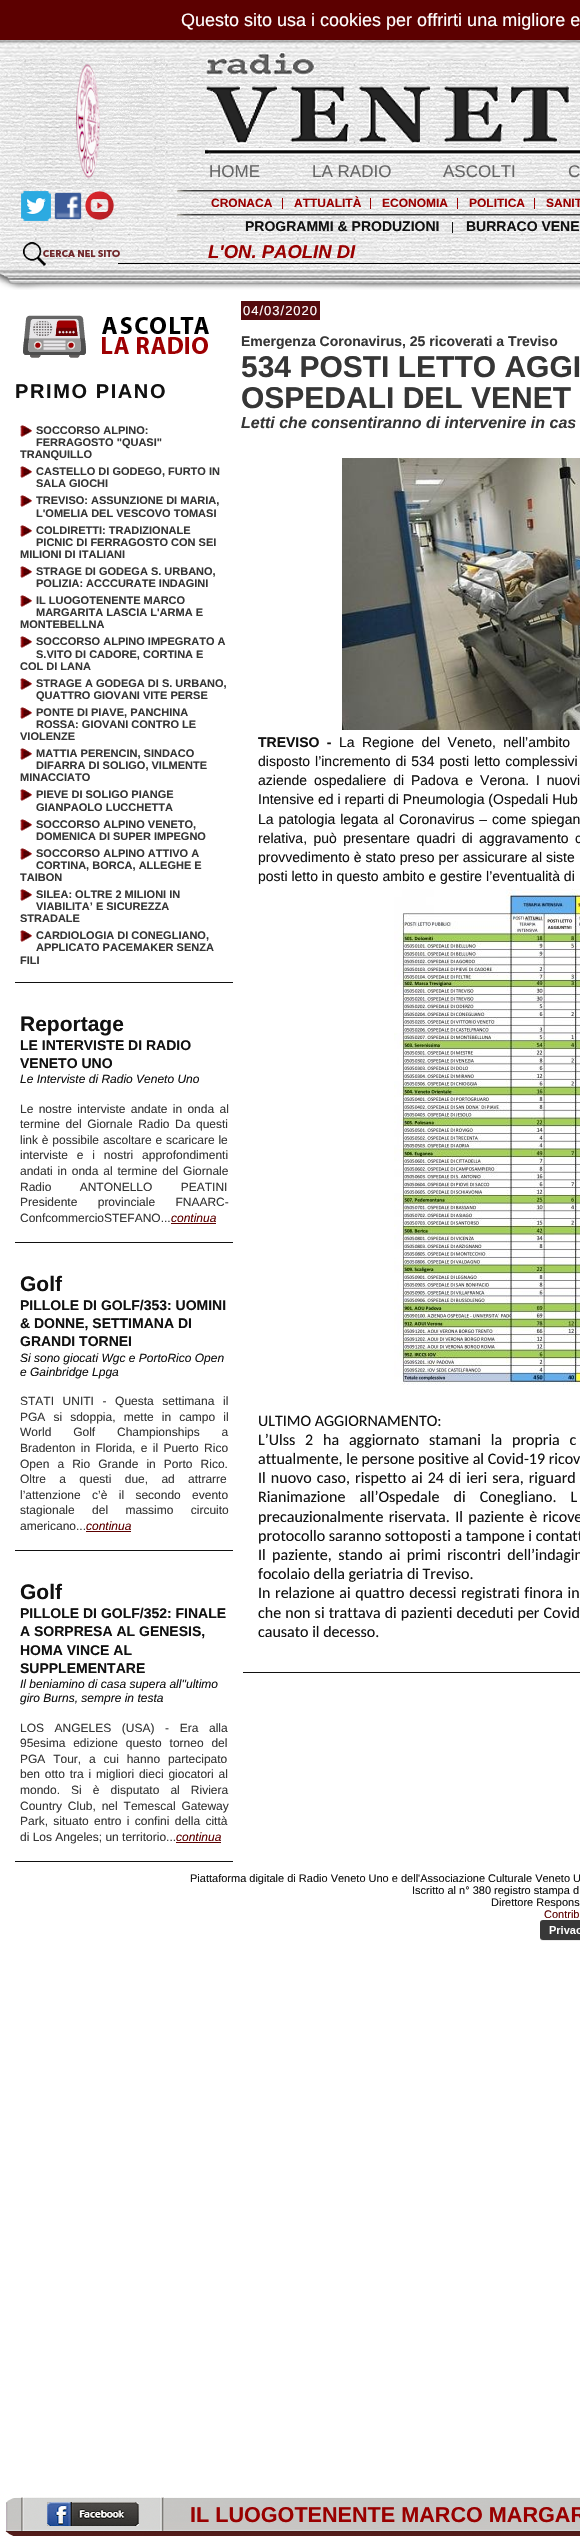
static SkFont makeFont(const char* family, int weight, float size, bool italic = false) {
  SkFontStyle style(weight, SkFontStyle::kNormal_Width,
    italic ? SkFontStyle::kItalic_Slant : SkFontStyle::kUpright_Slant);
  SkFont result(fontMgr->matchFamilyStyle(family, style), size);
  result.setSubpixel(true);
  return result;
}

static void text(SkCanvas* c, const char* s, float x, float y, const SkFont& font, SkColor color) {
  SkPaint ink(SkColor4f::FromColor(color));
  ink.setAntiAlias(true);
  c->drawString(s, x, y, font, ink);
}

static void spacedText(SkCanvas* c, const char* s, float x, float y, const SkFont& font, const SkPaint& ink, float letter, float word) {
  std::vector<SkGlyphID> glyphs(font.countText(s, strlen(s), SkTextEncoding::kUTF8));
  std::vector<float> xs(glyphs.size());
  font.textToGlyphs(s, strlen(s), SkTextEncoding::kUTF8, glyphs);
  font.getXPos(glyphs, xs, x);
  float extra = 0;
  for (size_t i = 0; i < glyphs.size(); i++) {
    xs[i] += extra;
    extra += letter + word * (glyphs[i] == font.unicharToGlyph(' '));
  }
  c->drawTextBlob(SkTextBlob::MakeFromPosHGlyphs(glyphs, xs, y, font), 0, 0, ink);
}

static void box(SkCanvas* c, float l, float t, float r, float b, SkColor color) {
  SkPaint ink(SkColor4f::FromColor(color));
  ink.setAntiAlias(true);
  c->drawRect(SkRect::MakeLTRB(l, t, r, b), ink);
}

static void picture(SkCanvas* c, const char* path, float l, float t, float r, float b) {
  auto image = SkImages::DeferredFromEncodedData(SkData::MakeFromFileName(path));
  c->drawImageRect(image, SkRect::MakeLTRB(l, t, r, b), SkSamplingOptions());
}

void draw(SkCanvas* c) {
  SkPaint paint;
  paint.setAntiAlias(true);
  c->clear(0xffffffff);
  box(c, 0, 0, 580, 40, 0xff5c0000);
  SkFont face1 = makeFont("Liberation Sans", 400, 18);
  text(c, "Questo sito usa i cookies per offrirti una migliore e", 181, 26, face1, 0xffffffff);
  picture(c, "img_01.png", 0, 40, 580, 59);
  picture(c, "img_02.png", 0, 59, 580, 269);
  picture(c, "img_03.png", 20, 57, 165, 187);
  picture(c, "img_04.png", 205, 52, 580, 155);
  SkFont face2 = makeFont("Liberation Sans", 400, 17);
  text(c, "HOME", 209, 177, face2, 0xff666666);
  text(c, "LA RADIO", 312, 177, face2, 0xff666666);
  text(c, "ASCOLTI", 443, 177, face2, 0xff666666);
  text(c, "C", 568, 177, face2, 0xff666666);
  picture(c, "img_05.png", 21, 191, 51, 221);
  picture(c, "img_06.png", 54, 191, 83, 220);
  picture(c, "img_07.png", 85, 191, 114, 220);
  picture(c, "img_08.png", 177, 190, 580, 192);
  SkFont face3 = makeFont("Liberation Sans", 700, 12);
  text(c, "CRONACA", 211, 207, face3, 0xff990000);
  box(c, 282, 198, 283, 209, 0xff990000);
  text(c, "ATTUALITÀ", 294, 207, face3, 0xff990000);
  box(c, 370, 198, 371, 209, 0xff990000);
  text(c, "ECONOMIA", 382, 207, face3, 0xff990000);
  box(c, 457, 198, 458, 209, 0xff990000);
  text(c, "POLITICA", 469, 207, face3, 0xff990000);
  box(c, 534, 198, 535, 209, 0xff990000);
  text(c, "SANIT", 546, 207, face3, 0xff990000);
  picture(c, "img_08.png", 177, 214, 580, 216);
  SkFont face4 = makeFont("Liberation Sans", 700, 14);
  text(c, "PROGRAMMI & PRODUZIONI", 245, 231, face4, 0xff111111);
  box(c, 452, 222, 453, 233, 0xff111111);
  text(c, "BURRACO VENE", 466, 231, face4, 0xff111111);
  box(c, 118, 263, 580, 264, 0xff000000);
  picture(c, "img_09.png", 23, 242, 120, 266);
  SkFont face5 = makeFont("Liberation Sans", 700, 18.5f, true);
  text(c, "L'ON. PAOLIN DI", 208, 258, face5, 0xff990000);
  picture(c, "img_10.png", 361, 240, 377, 262);
  picture(c, "img_11.png", 0, 269, 580, 290);
  picture(c, "img_12.png", 23, 315, 209, 358);
  SkFont face6 = makeFont("Liberation Sans", 700, 20);
  paint.setColor(0xff111111);
  spacedText(c, "PRIMO PIANO", 15, 398, face6, paint, 1.6f, 0);
  picture(c, "img_13.png", 20, 425, 32, 437);
  SkFont face7 = makeFont("Liberation Sans", 700, 11);
  text(c, "SOCCORSO ALPINO:", 36, 434, face7, 0xff363636);
  text(c, "FERRAGOSTO \"QUASI\"", 36, 446, face7, 0xff363636);
  text(c, "TRANQUILLO", 20, 458, face7, 0xff363636);
  picture(c, "img_13.png", 20, 466, 32, 478);
  text(c, "CASTELLO DI GODEGO, FURTO IN", 36, 475, face7, 0xff363636);
  text(c, "SALA GIOCHI", 36, 487, face7, 0xff363636);
  picture(c, "img_13.png", 20, 495, 32, 507);
  text(c, "TREVISO: ASSUNZIONE DI MARIA,", 36, 504, face7, 0xff363636);
  text(c, "L'OMELIA DEL VESCOVO TOMASI", 36, 517, face7, 0xff363636);
  picture(c, "img_13.png", 20, 525, 32, 537);
  text(c, "COLDIRETTI: TRADIZIONALE", 36, 534, face7, 0xff363636);
  text(c, "PICNIC DI FERRAGOSTO CON SEI", 36, 546, face7, 0xff363636);
  text(c, "MILIONI DI ITALIANI", 20, 558, face7, 0xff363636);
  picture(c, "img_13.png", 20, 566, 32, 578);
  text(c, "STRAGE DI GODEGA S. URBANO,", 36, 575, face7, 0xff363636);
  text(c, "POLIZIA: ACCCURATE INDAGINI", 36, 587, face7, 0xff363636);
  picture(c, "img_13.png", 20, 595, 32, 607);
  text(c, "IL LUOGOTENENTE MARCO", 36, 604, face7, 0xff363636);
  text(c, "MARGARITA LASCIA L'ARMA E", 36, 616, face7, 0xff363636);
  text(c, "MONTEBELLNA", 20, 628, face7, 0xff363636);
  picture(c, "img_13.png", 20, 636, 32, 648);
  text(c, "SOCCORSO ALPINO IMPEGRATO A", 36, 645, face7, 0xff363636);
  text(c, "S.VITO DI CADORE, CORTINA E", 36, 658, face7, 0xff363636);
  text(c, "COL DI LANA", 20, 670, face7, 0xff363636);
  picture(c, "img_13.png", 20, 678, 32, 690);
  text(c, "STRAGE A GODEGA DI S. URBANO,", 36, 687, face7, 0xff363636);
  text(c, "QUATTRO GIOVANI VITE PERSE", 36, 699, face7, 0xff363636);
  picture(c, "img_13.png", 20, 707, 32, 719);
  text(c, "PONTE DI PIAVE, PANCHINA", 36, 716, face7, 0xff363636);
  text(c, "ROSSA: GIOVANI CONTRO LE", 36, 728, face7, 0xff363636);
  text(c, "VIOLENZE", 20, 740, face7, 0xff363636);
  picture(c, "img_13.png", 20, 748, 32, 760);
  text(c, "MATTIA PERENCIN, SINDACO", 36, 757, face7, 0xff363636);
  text(c, "DIFARRA DI SOLIGO, VILMENTE", 36, 769, face7, 0xff363636);
  text(c, "MINACCIATO", 20, 781, face7, 0xff363636);
  picture(c, "img_13.png", 20, 789, 32, 801);
  text(c, "PIEVE DI SOLIGO PIANGE", 36, 798, face7, 0xff363636);
  text(c, "GIANPAOLO LUCCHETTA", 36, 811, face7, 0xff363636);
  picture(c, "img_13.png", 20, 819, 32, 831);
  text(c, "SOCCORSO ALPINO VENETO,", 36, 828, face7, 0xff363636);
  text(c, "DOMENICA DI SUPER IMPEGNO", 36, 840, face7, 0xff363636);
  picture(c, "img_13.png", 20, 848, 32, 860);
  text(c, "SOCCORSO ALPINO ATTIVO A", 36, 857, face7, 0xff363636);
  text(c, "CORTINA, BORCA, ALLEGHE E", 36, 869, face7, 0xff363636);
  text(c, "TAIBON", 20, 881, face7, 0xff363636);
  picture(c, "img_13.png", 20, 889, 32, 901);
  text(c, "SILEA: OLTRE 2 MILIONI IN", 36, 898, face7, 0xff363636);
  text(c, "VIABILITA’ E SICUREZZA", 36, 910, face7, 0xff363636);
  text(c, "STRADALE", 20, 922, face7, 0xff363636);
  picture(c, "img_13.png", 20, 930, 32, 942);
  text(c, "CARDIOLOGIA DI CONEGLIANO,", 36, 939, face7, 0xff363636);
  text(c, "APPLICATO PACEMAKER SENZA", 36, 951, face7, 0xff363636);
  text(c, "FILI", 20, 964, face7, 0xff363636);
  box(c, 15, 982, 233, 983, 0xff111111);
  SkFont face8 = makeFont("Liberation Sans", 700, 21);
  text(c, "Reportage", 20, 1031, face8, 0xff111111);
  text(c, "LE INTERVISTE DI RADIO", 20, 1050, face4, 0xff111111);
  text(c, "VENETO UNO", 20, 1068, face4, 0xff111111);
  SkFont face9 = makeFont("Liberation Sans", 400, 12, true);
  text(c, "Le Interviste di Radio Veneto Uno", 20, 1083, face9, 0xff111111);
  SkFont face10 = makeFont("Liberation Sans", 400, 12);
  paint.setColor(0xff363636);
  spacedText(c, "Le nostre interviste andate in onda al", 20, 1113, face10, paint, 0, 2);
  spacedText(c, "termine del Giornale Radio Da questi", 20, 1128, face10, paint, 0, 2.25f);
  spacedText(c, "link è possibile ascoltare e scaricare le", 20, 1144, face10, paint, 0, 0.5f);
  spacedText(c, "interviste e i nostri approfondimenti", 20, 1159, face10, paint, 0, 5.5f);
  spacedText(c, "andati in onda al termine del Giornale", 20, 1175, face10, paint, 0, 1.5f);
  spacedText(c, "Radio ANTONELLO PEATINI", 20, 1191, face10, paint, 0, 25);
  spacedText(c, "Presidente provinciale FNAARC-", 20, 1206, face10, paint, 0, 17);
  text(c, "ConfcommercioSTEFANO...", 20, 1222, face10, 0xff363636);
  text(c, "continua", 171, 1222, face9, 0xff5c0000);
  box(c, 171, 1223, 216, 1224, 0xff5c0000);
  box(c, 15, 1242, 233, 1243, 0xff111111);
  text(c, "Golf", 20, 1291, face8, 0xff111111);
  text(c, "PILLOLE DI GOLF/353: UOMINI", 20, 1310, face4, 0xff111111);
  text(c, "& DONNE, SETTIMANA DI", 20, 1328, face4, 0xff111111);
  text(c, "GRANDI TORNEI", 20, 1346, face4, 0xff111111);
  text(c, "Si sono giocati Wgc e PortoRico Open", 20, 1362, face9, 0xff111111);
  text(c, "e Gainbridge Lpga", 20, 1376, face9, 0xff111111);
  spacedText(c, "STATI UNITI - Questa settimana il", 20, 1405, face10, paint, 0, 5.25f);
  spacedText(c, "PGA si sdoppia, mette in campo il", 20, 1421, face10, paint, 0, 4.75f);
  spacedText(c, "World Golf Championships a", 20, 1436, face10, paint, 0, 18.5f);
  spacedText(c, "Bradenton in Florida, e il Puerto Rico", 20, 1452, face10, paint, 0, 2);
  spacedText(c, "Open a Rio Grande in Porto Rico.", 20, 1468, face10, paint, 0, 4.75f);
  spacedText(c, "Oltre a questi due, ad attrarre", 20, 1483, face10, paint, 0, 10);
  spacedText(c, "l’attenzione c’è il secondo evento", 20, 1499, face10, paint, 0, 8);
  spacedText(c, "stagionale del massimo circuito", 20, 1514, face10, paint, 0, 14);
  text(c, "americano...", 20, 1530, face10, 0xff363636);
  text(c, "continua", 86, 1530, face9, 0xff5c0000);
  box(c, 86, 1531, 131, 1532, 0xff5c0000);
  box(c, 15, 1550, 233, 1551, 0xff111111);
  text(c, "Golf", 20, 1599, face8, 0xff111111);
  text(c, "PILLOLE DI GOLF/352: FINALE", 20, 1618, face4, 0xff111111);
  text(c, "A SORPRESA AL GENESIS,", 20, 1636, face4, 0xff111111);
  text(c, "HOMA VINCE AL", 20, 1655, face4, 0xff111111);
  text(c, "SUPPLEMENTARE", 20, 1673, face4, 0xff111111);
  text(c, "Il beniamino di casa supera all''ultimo", 20, 1688, face9, 0xff111111);
  text(c, "giro Burns, sempre in testa", 20, 1702, face9, 0xff111111);
  spacedText(c, "LOS ANGELES (USA) - Era alla", 20, 1732, face10, paint, 0, 7.25f);
  spacedText(c, "95esima edizione questo torneo del", 20, 1747, face10, paint, 0, 4.5f);
  spacedText(c, "PGA Tour, a cui hanno partecipato", 20, 1763, face10, paint, 0, 4.5f);
  spacedText(c, "ben otto tra i migliori dieci giocatori al", 20, 1778, face10, paint, 0, 1.5f);
  spacedText(c, "mondo. Si è disputato al Riviera", 20, 1794, face10, paint, 0, 7.75f);
  spacedText(c, "Country Club, nel Temescal Gateway", 20, 1810, face10, paint, 0, 2.5f);
  spacedText(c, "Park, situato entro i confini della città", 20, 1825, face10, paint, 0, 2);
  text(c, "di Los Angeles; un territorio...", 20, 1841, face10, 0xff363636);
  text(c, "continua", 176, 1841, face9, 0xff5c0000);
  box(c, 176, 1842, 221, 1843, 0xff5c0000);
  box(c, 15, 1861, 233, 1862, 0xff111111);
  box(c, 241, 301, 320, 320, 0xff550b0e);
  SkFont face11 = makeFont("Liberation Sans", 400, 13);
  paint.setColor(0xffffffff);
  spacedText(c, "04/03/2020", 243, 315, face11, paint, 1, 0);
  text(c, "Emergenza Coronavirus, 25 ricoverati a Treviso", 241, 346, face4, 0xff363636);
  SkFont face12 = makeFont("Liberation Sans", 700, 30);
  text(c, "534 POSTI LETTO AGGI", 241, 377, face12, 0xff363636);
  text(c, "OSPEDALI DEL VENET", 241, 408, face12, 0xff363636);
  SkFont face13 = makeFont("Liberation Sans", 700, 16, true);
  text(c, "Letti che consentiranno di intervenire in cas", 241, 428, face13, 0xff363636);
  picture(c, "img_14.png", 342, 458, 580, 730);
  paint.setColor(0xff111111);
  spacedText(c, "TREVISO -", 258, 747, face4, paint, 0, 3.5f);
  SkFont face14 = makeFont("Liberation Sans", 400, 14);
  spacedText(c, "La Regione del Veneto, nell’ambito", 339, 747, face14, paint, 0, 3.5f);
  spacedText(c, "disposto l’incremento di 534 posti letto complessivi", 258, 766, face14, paint, 0, 1);
  spacedText(c, "aziende ospedaliere di Padova e Verona. I nuovi", 258, 785, face14, paint, 0, 3);
  text(c, "Intensive ed i reparti di Pneumologia (Ospedali Hub", 258, 804, face14, 0xff111111);
  spacedText(c, "La patologia legata al Coronavirus – come spiegan", 258, 824, face14, paint, 0, 1);
  spacedText(c, "relativa, può presentare quadri di aggravamento c", 258, 843, face14, paint, 0, 2.5f);
  text(c, "provvedimento è stato preso per assicurare al siste", 258, 862, face14, 0xff111111);
  text(c, "posti letto in questo ambito e gestire l’eventualità di", 258, 881, face14, 0xff111111);
  picture(c, "img_15.png", 394, 889, 580, 1385);
  SkFont face15 = makeFont("Carlito", 400, 16);
  text(c, "ULTIMO AGGIORNAMENTO:", 258, 1426, face15, 0xff111111);
  spacedText(c, "L’Ulss 2 ha aggiornato stamani la propria c", 258, 1445, face15, paint, 0, 6.25f);
  text(c, "attualmente, le persone positive al Covid-19 ricov", 258, 1464, face15, 0xff111111);
  spacedText(c, "Il nuovo caso, rispetto ai 24 di ieri sera, riguard", 258, 1483, face15, paint, 0, 1.5f);
  spacedText(c, "Rianimazione all’Ospedale di Conegliano. L", 258, 1502, face15, paint, 0, 10.5f);
  spacedText(c, "precauzionalmente riservata. Il paziente è ricove", 258, 1522, face15, paint, 0, 1.75f);
  text(c, "protocollo saranno sottoposti a tampone i contatt", 258, 1541, face15, 0xff111111);
  spacedText(c, "Il paziente, stando ai primi riscontri dell’indagin", 258, 1560, face15, paint, 0, 2.75f);
  text(c, "focolaio della geriatria di Treviso.", 258, 1579, face15, 0xff111111);
  spacedText(c, "In relazione ai quattro decessi registrati finora in", 258, 1598, face15, paint, 0, 1);
  spacedText(c, "che non si trattava di pazienti deceduti per Covid", 258, 1618, face15, paint, 0, 0.5f);
  text(c, "causato il decesso.", 258, 1637, face15, 0xff111111);
  box(c, 243, 1672, 580, 1673, 0xff111111);
  SkFont face16 = makeFont("Liberation Sans", 400, 11);
  text(c, "Piattaforma digitale di Radio Veneto Uno e dell'Associazione Culturale Veneto U", 190, 1882, face16, 0xff111111);
  text(c, "Iscritto al n° 380 registro stampa d", 412, 1894, face16, 0xff111111);
  text(c, "Direttore Respons", 491, 1906, face16, 0xff111111);
  text(c, "Contrib", 544, 1918, face16, 0xff5c0000);
  picture(c, "img_16.png", 540, 1920, 580, 1941);
  picture(c, "img_17.png", 5, 2497, 580, 2536);
  picture(c, "img_18.png", 47, 2502, 139, 2526);
  SkFont face17 = makeFont("Liberation Sans", 700, 21.6f);
  text(c, "IL LUOGOTENENTE MARCO MARGAR", 190, 2522, face17, 0xff990000);
}
